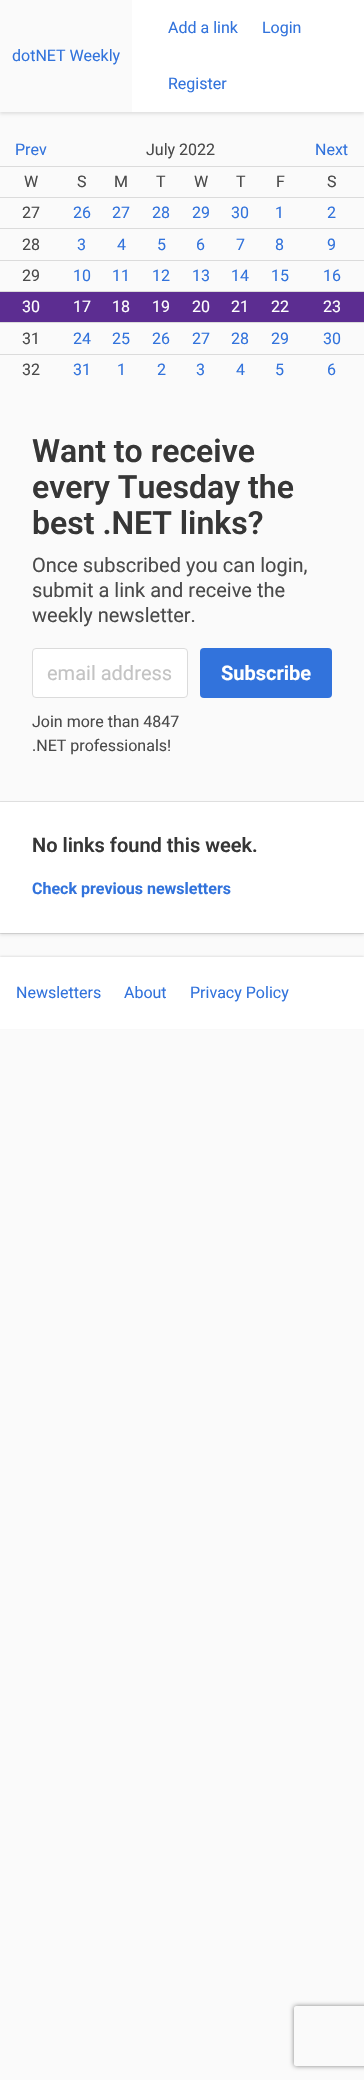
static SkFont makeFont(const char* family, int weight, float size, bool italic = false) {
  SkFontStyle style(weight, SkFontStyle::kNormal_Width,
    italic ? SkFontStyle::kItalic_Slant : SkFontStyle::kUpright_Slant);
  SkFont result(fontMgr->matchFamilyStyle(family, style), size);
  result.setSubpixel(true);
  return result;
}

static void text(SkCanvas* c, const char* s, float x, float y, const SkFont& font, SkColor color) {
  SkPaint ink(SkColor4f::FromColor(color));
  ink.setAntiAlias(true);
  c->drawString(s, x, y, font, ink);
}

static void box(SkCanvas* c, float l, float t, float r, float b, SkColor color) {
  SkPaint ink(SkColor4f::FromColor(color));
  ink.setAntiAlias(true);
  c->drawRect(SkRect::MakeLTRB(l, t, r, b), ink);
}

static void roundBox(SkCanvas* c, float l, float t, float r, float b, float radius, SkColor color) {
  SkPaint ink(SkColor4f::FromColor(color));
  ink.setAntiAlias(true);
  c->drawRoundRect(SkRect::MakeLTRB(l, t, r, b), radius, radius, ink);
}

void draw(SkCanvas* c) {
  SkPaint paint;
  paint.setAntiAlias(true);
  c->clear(0xfffafafa);
  paint.setColor(0x1a000000);
  paint.setMaskFilter(SkMaskFilter::MakeBlur(kNormal_SkBlurStyle, 1.5f));
  c->drawRect(SkRect::MakeLTRB(0, 2, 364, 114), paint);
  paint.setMaskFilter(nullptr);
  box(c, 132, 0, 364, 112, 0xffffffff);
  box(c, 0, 0, 132, 112, 0xfffafafa);
  SkFont face1 = makeFont("Roboto", 400, 16);
  text(c, "dotNET Weekly", 12, 61, face1, 0xff3273dc);
  text(c, "Add a link", 168, 33, face1, 0xff3273dc);
  text(c, "Login", 262, 33, face1, 0xff3273dc);
  text(c, "Register", 168, 89, face1, 0xff3273dc);
  text(c, "Prev", 15, 155, face1, 0xff3273dc);
  text(c, "July 2022", 146, 155, face1, 0xff4a4a4a);
  box(c, 0, 166, 364, 167, 0xffdbdbdb);
  text(c, "Next", 315, 155, face1, 0xff3273dc);
  text(c, "W", 24, 187, face1, 0xff4a4a4a);
  text(c, "S", 77, 187, face1, 0xff4a4a4a);
  text(c, "M", 114, 187, face1, 0xff4a4a4a);
  text(c, "T", 156, 187, face1, 0xff4a4a4a);
  text(c, "W", 194, 187, face1, 0xff4a4a4a);
  text(c, "T", 236, 187, face1, 0xff4a4a4a);
  text(c, "F", 276, 187, face1, 0xff4a4a4a);
  box(c, 0, 197, 364, 198, 0xffdbdbdb);
  text(c, "S", 327, 187, face1, 0xff4a4a4a);
  text(c, "27", 22, 218, face1, 0xff4a4a4a);
  text(c, "26", 73, 218, face1, 0xff3273dc);
  text(c, "27", 112, 218, face1, 0xff3273dc);
  text(c, "28", 152, 218, face1, 0xff3273dc);
  text(c, "29", 192, 218, face1, 0xff3273dc);
  text(c, "30", 231, 218, face1, 0xff3273dc);
  text(c, "1", 275, 218, face1, 0xff3273dc);
  box(c, 0, 228, 364, 229, 0xffdbdbdb);
  text(c, "2", 327, 218, face1, 0xff3273dc);
  text(c, "28", 22, 250, face1, 0xff4a4a4a);
  text(c, "3", 77, 250, face1, 0xff3273dc);
  text(c, "4", 117, 250, face1, 0xff3273dc);
  text(c, "5", 157, 250, face1, 0xff3273dc);
  text(c, "6", 196, 250, face1, 0xff3273dc);
  text(c, "7", 236, 250, face1, 0xff3273dc);
  text(c, "8", 275, 250, face1, 0xff3273dc);
  box(c, 0, 260, 364, 261, 0xffdbdbdb);
  text(c, "9", 327, 250, face1, 0xff3273dc);
  text(c, "29", 22, 281, face1, 0xff4a4a4a);
  text(c, "10", 73, 281, face1, 0xff3273dc);
  text(c, "11", 112, 281, face1, 0xff3273dc);
  text(c, "12", 152, 281, face1, 0xff3273dc);
  text(c, "13", 192, 281, face1, 0xff3273dc);
  text(c, "14", 231, 281, face1, 0xff3273dc);
  text(c, "15", 271, 281, face1, 0xff3273dc);
  box(c, 0, 291, 364, 292, 0xffdbdbdb);
  text(c, "16", 323, 281, face1, 0xff3273dc);
  box(c, 0, 292, 364, 322, 0xff5c2d91);
  text(c, "30", 22, 312, face1, 0xffffffff);
  text(c, "17", 73, 312, face1, 0xffffffff);
  text(c, "18", 112, 312, face1, 0xffffffff);
  text(c, "19", 152, 312, face1, 0xffffffff);
  text(c, "20", 192, 312, face1, 0xffffffff);
  text(c, "21", 231, 312, face1, 0xffffffff);
  text(c, "22", 271, 312, face1, 0xffffffff);
  box(c, 0, 322, 364, 323, 0xffdbdbdb);
  text(c, "23", 323, 312, face1, 0xffffffff);
  text(c, "31", 22, 344, face1, 0xff4a4a4a);
  text(c, "24", 73, 344, face1, 0xff3273dc);
  text(c, "25", 112, 344, face1, 0xff3273dc);
  text(c, "26", 152, 344, face1, 0xff3273dc);
  text(c, "27", 192, 344, face1, 0xff3273dc);
  text(c, "28", 231, 344, face1, 0xff3273dc);
  text(c, "29", 271, 344, face1, 0xff3273dc);
  box(c, 0, 354, 364, 355, 0xffdbdbdb);
  text(c, "30", 323, 344, face1, 0xff3273dc);
  text(c, "32", 22, 375, face1, 0xff4a4a4a);
  text(c, "31", 73, 375, face1, 0xff3273dc);
  text(c, "1", 117, 375, face1, 0xff3273dc);
  text(c, "2", 157, 375, face1, 0xff3273dc);
  text(c, "3", 196, 375, face1, 0xff3273dc);
  text(c, "4", 236, 375, face1, 0xff3273dc);
  text(c, "5", 275, 375, face1, 0xff3273dc);
  text(c, "6", 327, 375, face1, 0xff3273dc);
  SkFont face2 = makeFont("Roboto", 600, 32);
  text(c, "Want to receive", 32, 462, face2, 0xff363636);
  text(c, "every Tuesday the", 32, 498, face2, 0xff363636);
  text(c, "best .NET links?", 32, 534, face2, 0xff363636);
  SkFont face3 = makeFont("Roboto", 400, 20);
  text(c, "Once subscribed you can login,", 32, 572, face3, 0xff4a4a4a);
  text(c, "submit a link and receive the", 32, 597, face3, 0xff4a4a4a);
  text(c, "weekly newsletter.", 32, 622, face3, 0xff4a4a4a);
  paint.setColor(0xffffffff);
  c->drawRoundRect(SkRect::MakeLTRB(32.5f, 648.5f, 187.5f, 697.5f), 3.5f, 3.5f, paint);
  paint.setStyle(SkPaint::kStroke_Style);
  paint.setStrokeWidth(1);
  paint.setColor(0xffdbdbdb);
  c->drawRoundRect(SkRect::MakeLTRB(32.5f, 648.5f, 187.5f, 697.5f), 3.5f, 3.5f, paint);
  text(c, "email address", 47, 680, face3, 0xffc3c3c3);
  text(c, "Join more than 4847", 32, 727, face1, 0xff4a4a4a);
  text(c, ".NET professionals!", 32, 751, face1, 0xff4a4a4a);
  roundBox(c, 200, 648, 332, 698, 4, 0xff3273dc);
  SkFont face4 = makeFont("Roboto", 700, 20);
  text(c, "Subscribe", 221, 680, face4, 0xffffffff);
  c->save();
  c->clipPath(SkPathBuilder(SkPathFillType::kEvenOdd).moveTo(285, 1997).lineTo(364, 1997).lineTo(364, 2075).lineTo(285, 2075).close().moveTo(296, 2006).lineTo(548, 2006).cubicTo(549, 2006, 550, 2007, 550, 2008).lineTo(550, 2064).cubicTo(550, 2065, 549, 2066, 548, 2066).lineTo(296, 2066).cubicTo(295, 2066, 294, 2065, 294, 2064).lineTo(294, 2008).cubicTo(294, 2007, 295, 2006, 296, 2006).close().detach(), true);
  paint.setStyle(SkPaint::kFill_Style);
  paint.setColor(0xff808080);
  paint.setMaskFilter(SkMaskFilter::MakeBlur(kNormal_SkBlurStyle, 2.5f));
  c->drawRoundRect(SkRect::MakeLTRB(294, 2006, 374, 2066), 2, 2, paint);
  paint.setMaskFilter(nullptr);
  c->restore();
  paint.setStyle(SkPaint::kStroke_Style);
  paint.setColor(0xffe1e1e1);
  c->drawRect(SkRect::MakeLTRB(-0.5f, 801.5f, 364.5f, 933.5f), paint);
  paint.setStyle(SkPaint::kFill_Style);
  paint.setColor(0x1a000000);
  paint.setMaskFilter(SkMaskFilter::MakeBlur(kNormal_SkBlurStyle, 1.5f));
  c->drawRect(SkRect::MakeLTRB(0, 804, 364, 935), paint);
  paint.setMaskFilter(nullptr);
  box(c, 0, 802, 364, 933, 0xffffffff);
  SkFont face5 = makeFont("Roboto", 600, 20);
  text(c, "No links found this week.", 32, 852, face5, 0xff363636);
  SkFont face6 = makeFont("Roboto", 700, 16);
  text(c, "Check previous newsletters", 32, 894, face6, 0xff3273dc);
  paint.setColor(0x1a0a0a0a);
  paint.setMaskFilter(SkMaskFilter::MakeBlur(kNormal_SkBlurStyle, 1));
  c->drawRect(SkRect::MakeLTRB(0, 956, 364, 1028), paint);
  paint.setMaskFilter(nullptr);
  box(c, 0, 957, 364, 1029, 0xffffffff);
  text(c, "Newsletters", 16, 998, face1, 0xff3273dc);
  text(c, "About", 124, 998, face1, 0xff3273dc);
  text(c, "Privacy Policy", 190, 998, face1, 0xff3273dc);
}
